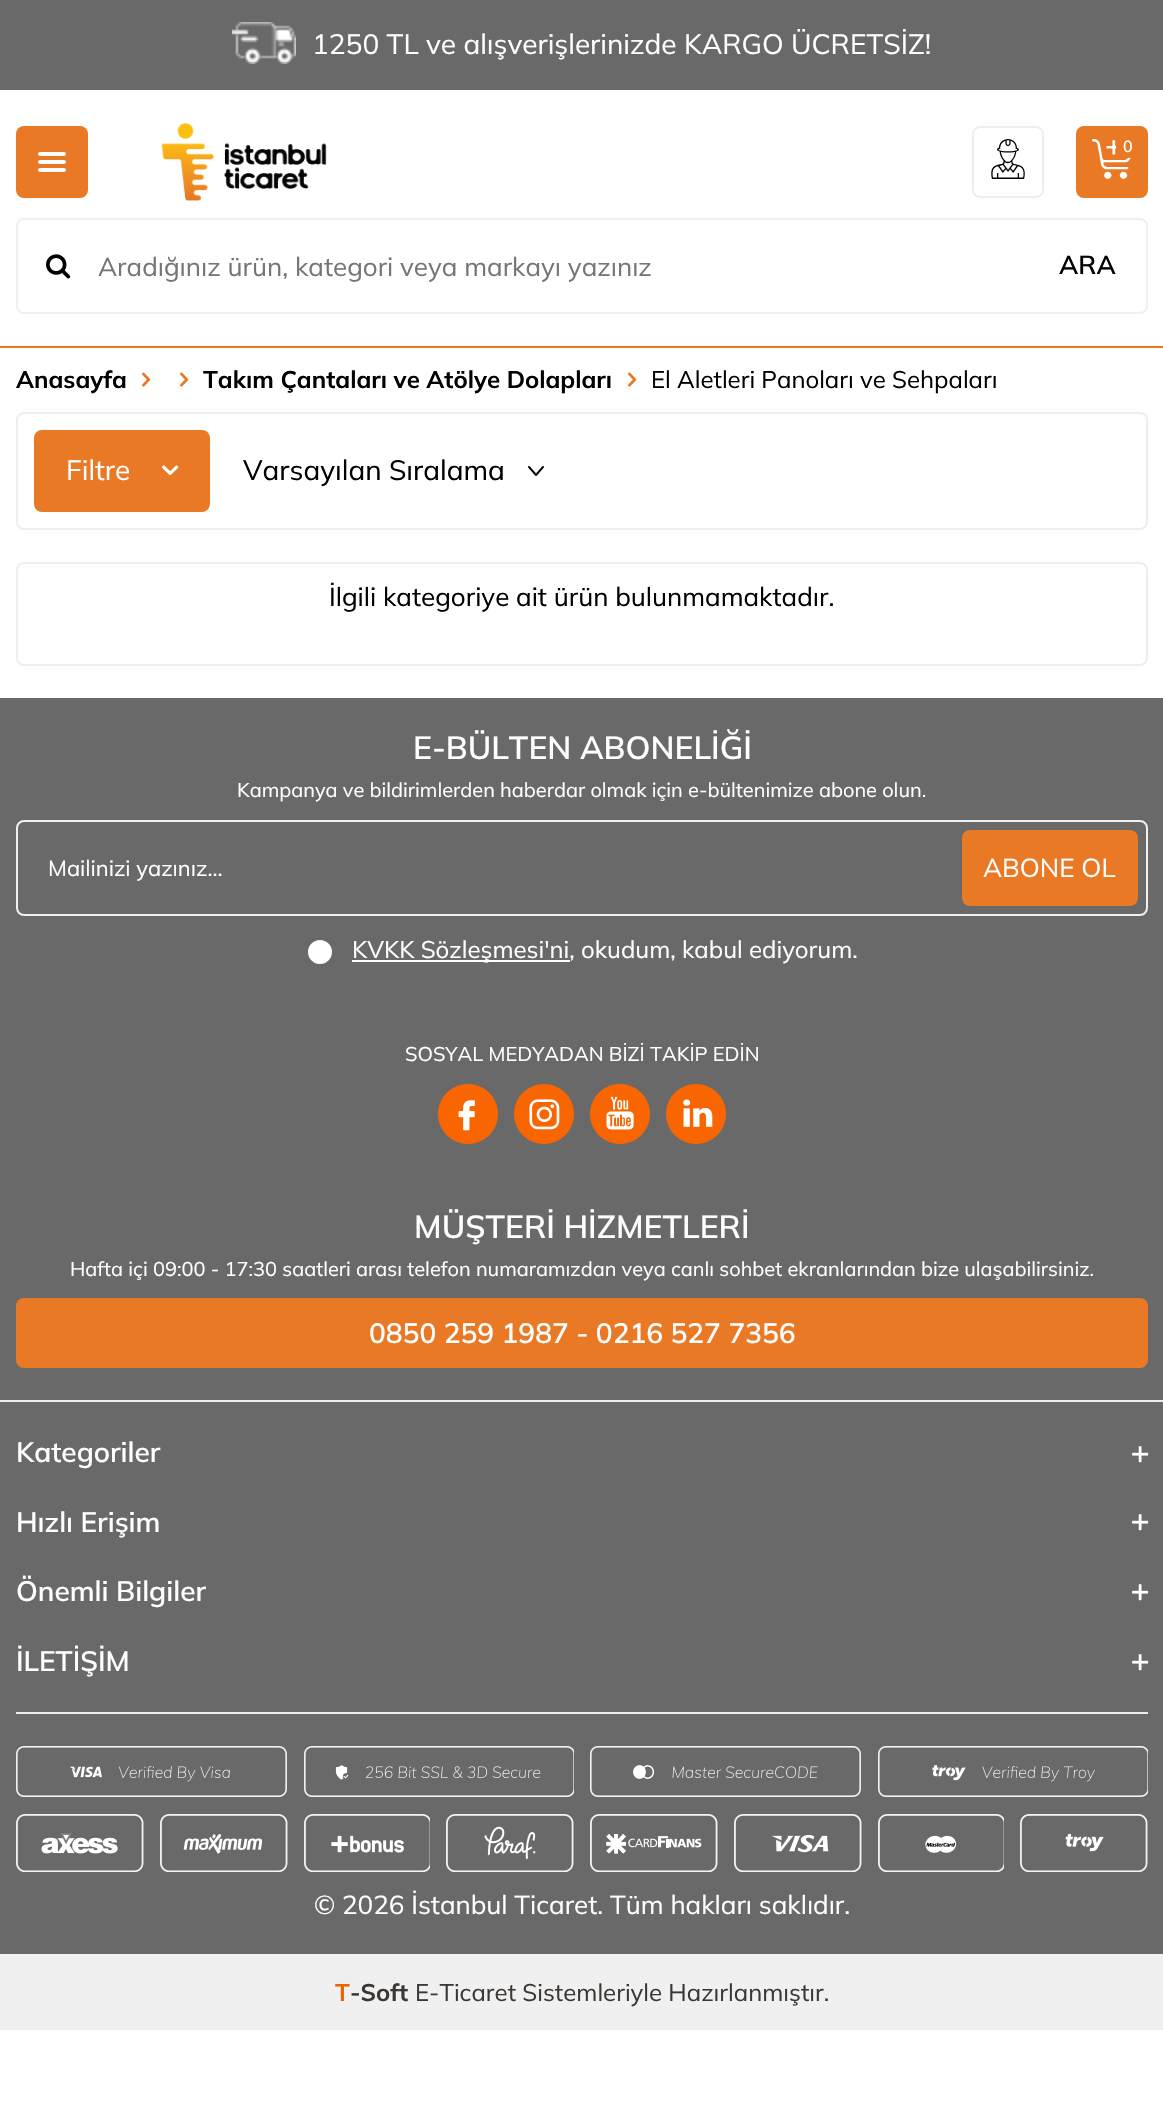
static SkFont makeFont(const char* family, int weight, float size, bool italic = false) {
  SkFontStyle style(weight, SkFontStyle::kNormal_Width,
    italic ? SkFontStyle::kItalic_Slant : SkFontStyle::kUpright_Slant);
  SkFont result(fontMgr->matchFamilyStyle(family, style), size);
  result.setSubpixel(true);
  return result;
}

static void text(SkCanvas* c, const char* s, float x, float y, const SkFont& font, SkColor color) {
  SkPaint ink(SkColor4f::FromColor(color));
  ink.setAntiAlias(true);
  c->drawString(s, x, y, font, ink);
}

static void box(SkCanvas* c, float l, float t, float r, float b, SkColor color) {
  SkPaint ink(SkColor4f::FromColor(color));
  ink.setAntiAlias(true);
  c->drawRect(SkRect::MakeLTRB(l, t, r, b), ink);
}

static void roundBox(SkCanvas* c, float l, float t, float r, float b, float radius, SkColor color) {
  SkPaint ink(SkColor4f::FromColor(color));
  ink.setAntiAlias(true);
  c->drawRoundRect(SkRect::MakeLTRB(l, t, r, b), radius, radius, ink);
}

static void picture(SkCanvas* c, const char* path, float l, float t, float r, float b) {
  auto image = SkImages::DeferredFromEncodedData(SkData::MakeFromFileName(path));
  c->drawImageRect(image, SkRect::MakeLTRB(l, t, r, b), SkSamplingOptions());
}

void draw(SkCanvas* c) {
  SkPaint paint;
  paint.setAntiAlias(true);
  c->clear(0xffffffff);
  box(c, 0, 0, 1163, 90, 0xff696969);
  picture(c, "img_01.png", 232, 22, 296, 64);
  SkFont face1 = makeFont("Mulish", 400, 28);
  text(c, "1250 TL ve alışverişlerinizde KARGO ÜCRETSİZ!", 312, 54, face1, 0xffffffff);
  box(c, 0, 346, 1163, 348, 0xffe97925);
  roundBox(c, 16, 126, 88, 198, 8, 0xffe97925);
  picture(c, "img_02.png", 38, 152, 66, 172);
  picture(c, "img_03.png", 161, 123, 327, 201);
  paint.setStyle(SkPaint::kStroke_Style);
  paint.setStrokeWidth(2);
  paint.setColor(0xffeeeeee);
  c->drawRoundRect(SkRect::MakeLTRB(973, 127, 1043, 197), 7, 7, paint);
  picture(c, "img_04.png", 991, 139, 1025, 179);
  paint.setStyle(SkPaint::kFill_Style);
  paint.setColor(0xffe97925);
  c->drawRoundRect(SkRect::MakeLTRB(1077, 127, 1147, 197), 7, 7, paint);
  paint.setStyle(SkPaint::kStroke_Style);
  c->drawRoundRect(SkRect::MakeLTRB(1077, 127, 1147, 197), 7, 7, paint);
  picture(c, "img_05.png", 1092, 139, 1131, 179);
  paint.setStyle(SkPaint::kFill_Style);
  c->drawCircle(1128, 146, 12, paint);
  SkFont face2 = makeFont("Mulish", 500, 16);
  text(c, "0", 1123, 152, face2, 0xffffffff);
  paint.setStyle(SkPaint::kStroke_Style);
  paint.setColor(0xfff0f0f0);
  c->drawRoundRect(SkRect::MakeLTRB(17, 219, 1147, 313), 7, 7, paint);
  picture(c, "img_06.png", 46, 254, 71, 279);
  SkFont face3 = makeFont("Mulish", 400, 26);
  text(c, "Aradığınız ürün, kategori veya markayı yazınız", 98, 276, face3, 0xff757575);
  SkFont face4 = makeFont("Mulish", 600, 26);
  text(c, "ARA", 1059, 274, face4, 0xff000000);
  SkFont face5 = makeFont("Mulish", 700, 24);
  text(c, "Anasayfa", 16, 388, face5, 0xff000000);
  picture(c, "img_07.png", 142, 372, 151, 387);
  picture(c, "img_07.png", 180, 372, 189, 387);
  text(c, "Takım Çantaları ve Atölye Dolapları", 203, 388, face5, 0xff000000);
  picture(c, "img_07.png", 628, 372, 637, 387);
  SkFont face6 = makeFont("Mulish", 400, 24);
  text(c, "El Aletleri Panoları ve Sehpaları", 651, 388, face6, 0xff000000);
  paint.setColor(0xffeeeeee);
  c->drawRoundRect(SkRect::MakeLTRB(17, 413, 1147, 529), 7, 7, paint);
  paint.setStyle(SkPaint::kFill_Style);
  paint.setColor(0xffe97925);
  c->drawRoundRect(SkRect::MakeLTRB(35, 431, 209, 511), 7, 7, paint);
  paint.setStyle(SkPaint::kStroke_Style);
  c->drawRoundRect(SkRect::MakeLTRB(35, 431, 209, 511), 7, 7, paint);
  text(c, "Filtre", 66, 480, face1, 0xffffffff);
  picture(c, "img_08.png", 162, 465, 179, 475);
  picture(c, "img_09.png", 528, 466, 544, 476);
  text(c, "Varsayılan Sıralama", 243, 480, face1, 0xff000000);
  paint.setColor(0xffeeeeee);
  c->drawRoundRect(SkRect::MakeLTRB(17, 563, 1147, 665), 7, 7, paint);
  text(c, "İlgili kategoriye ait ürün bulunmamaktadır.", 329, 606, face3, 0xff000000);
  box(c, 0, 698, 1163, 1954, 0xff696969);
  box(c, 0, 1400, 1163, 1402, 0xffeeeeee);
  SkFont face7 = makeFont("Mulish", 600, 32);
  text(c, "E-BÜLTEN ABONELİĞİ", 413, 759, face7, 0xffffffff);
  SkFont face8 = makeFont("Mulish", 400, 20);
  text(c, "Kampanya ve bildirimlerden haberdar olmak için e-bültenimize abone olun.", 237, 797, face8, 0xffffffff);
  paint.setColor(0xfff0f0f0);
  c->drawRoundRect(SkRect::MakeLTRB(17, 821, 1147, 915), 7, 7, paint);
  SkFont face9 = makeFont("Mulish", 400, 22);
  text(c, "Mailinizi yazınız...", 48, 876, face9, 0xffffffff);
  paint.setStyle(SkPaint::kFill_Style);
  paint.setColor(0xffe97925);
  c->drawRoundRect(SkRect::MakeLTRB(963, 831, 1137, 905), 7, 7, paint);
  paint.setStyle(SkPaint::kStroke_Style);
  c->drawRoundRect(SkRect::MakeLTRB(963, 831, 1137, 905), 7, 7, paint);
  text(c, "ABONE OL", 983, 877, face3, 0xffffffff);
  paint.setStyle(SkPaint::kFill_Style);
  paint.setColor(0xffffffff);
  c->drawCircle(320, 952, 13, paint);
  paint.setStyle(SkPaint::kStroke_Style);
  paint.setColor(0xff696969);
  c->drawCircle(320, 952, 13, paint);
  box(c, 352, 960, 570, 962, 0xffffffff);
  text(c, "KVKK Sözleşmesi'ni, okudum, kabul ediyorum.", 352, 958, face6, 0xffffffff);
  text(c, "SOSYAL MEDYADAN BİZİ TAKİP EDİN", 405, 1061, face8, 0xffffffff);
  picture(c, "img_10.png", 438, 1084, 498, 1144);
  picture(c, "img_11.png", 514, 1084, 574, 1144);
  picture(c, "img_12.png", 590, 1084, 650, 1144);
  picture(c, "img_13.png", 666, 1084, 726, 1144);
  text(c, "MÜŞTERİ HİZMETLERİ", 414, 1238, face7, 0xffffffff);
  text(c, "Hafta içi 09:00 - 17:30 saatleri arası telefon numaramızdan veya canlı sohbet ekranlarından bize ulaşabilirsiniz.", 70, 1276, face8, 0xffffffff);
  roundBox(c, 16, 1298, 1148, 1368, 8, 0xffe97925);
  SkFont face10 = makeFont("Mulish", 600, 28);
  text(c, "0850 259 1987 - 0216 527 7356", 369, 1343, face10, 0xffffffff);
  box(c, 16, 1712, 1148, 1714, 0xffeeeeee);
  text(c, "Kategoriler", 16, 1462, face10, 0xffffffff);
  picture(c, "img_14.png", 1132, 1446, 1149, 1463);
  text(c, "Hızlı Erişim", 16, 1532, face10, 0xffffffff);
  picture(c, "img_14.png", 1132, 1514, 1149, 1531);
  text(c, "Önemli Bilgiler", 16, 1601, face10, 0xffffffff);
  picture(c, "img_14.png", 1132, 1584, 1149, 1601);
  text(c, "İLETİŞİM", 16, 1671, face10, 0xffffffff);
  picture(c, "img_14.png", 1132, 1654, 1149, 1671);
  picture(c, "img_15.png", 16, 1746, 287, 1797);
  picture(c, "img_16.png", 304, 1746, 574, 1797);
  picture(c, "img_17.png", 590, 1746, 861, 1797);
  picture(c, "img_18.png", 878, 1746, 1148, 1797);
  picture(c, "img_19.png", 16, 1814, 144, 1872);
  picture(c, "img_20.png", 160, 1814, 288, 1872);
  picture(c, "img_21.png", 304, 1814, 430, 1872);
  picture(c, "img_22.png", 446, 1814, 574, 1872);
  picture(c, "img_23.png", 590, 1814, 718, 1872);
  picture(c, "img_24.png", 734, 1814, 862, 1872);
  picture(c, "img_25.png", 878, 1814, 1004, 1872);
  picture(c, "img_26.png", 1020, 1814, 1148, 1872);
  text(c, "© 2026 İstanbul Ticaret. Tüm hakları saklıdır.", 314, 1914, face3, 0xffffffff);
  box(c, 0, 1954, 1163, 2030, 0xfff0f0f0);
  text(c, "T", 335, 2001, face5, 0xffec6408);
  text(c, "-Soft", 350, 2001, face5, 0xff3b3734);
  text(c, "E-Ticaret Sistemleriyle Hazırlanmıştır.", 415, 2001, face6, 0xff3b3734);
}
